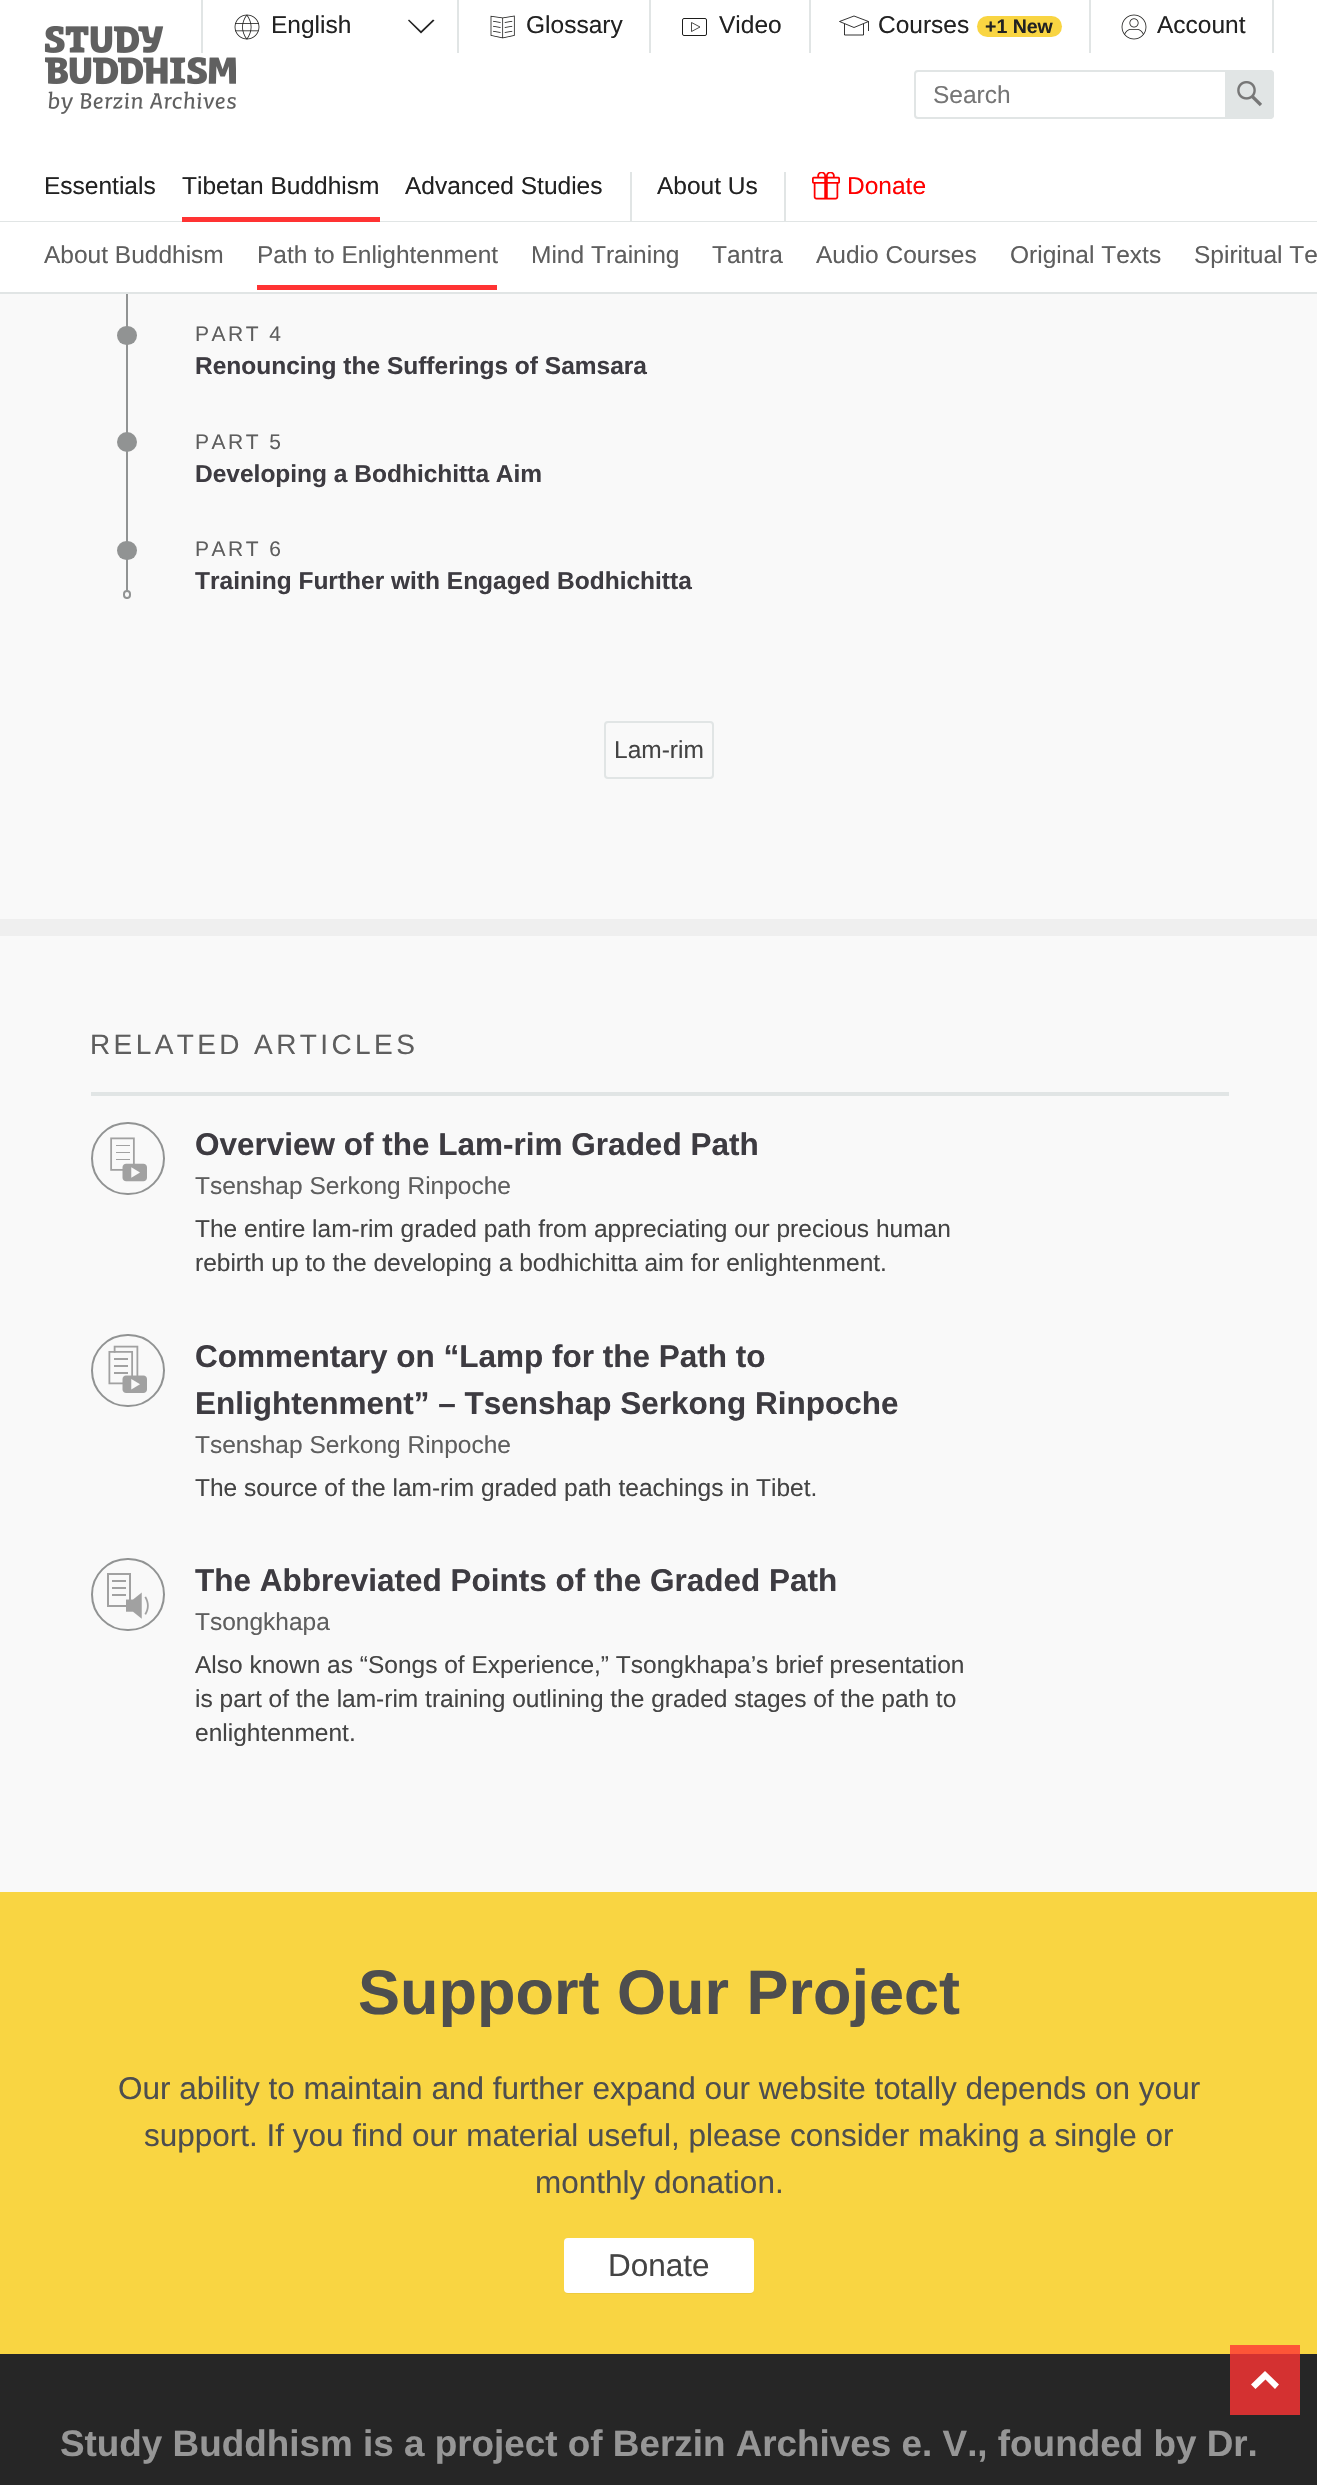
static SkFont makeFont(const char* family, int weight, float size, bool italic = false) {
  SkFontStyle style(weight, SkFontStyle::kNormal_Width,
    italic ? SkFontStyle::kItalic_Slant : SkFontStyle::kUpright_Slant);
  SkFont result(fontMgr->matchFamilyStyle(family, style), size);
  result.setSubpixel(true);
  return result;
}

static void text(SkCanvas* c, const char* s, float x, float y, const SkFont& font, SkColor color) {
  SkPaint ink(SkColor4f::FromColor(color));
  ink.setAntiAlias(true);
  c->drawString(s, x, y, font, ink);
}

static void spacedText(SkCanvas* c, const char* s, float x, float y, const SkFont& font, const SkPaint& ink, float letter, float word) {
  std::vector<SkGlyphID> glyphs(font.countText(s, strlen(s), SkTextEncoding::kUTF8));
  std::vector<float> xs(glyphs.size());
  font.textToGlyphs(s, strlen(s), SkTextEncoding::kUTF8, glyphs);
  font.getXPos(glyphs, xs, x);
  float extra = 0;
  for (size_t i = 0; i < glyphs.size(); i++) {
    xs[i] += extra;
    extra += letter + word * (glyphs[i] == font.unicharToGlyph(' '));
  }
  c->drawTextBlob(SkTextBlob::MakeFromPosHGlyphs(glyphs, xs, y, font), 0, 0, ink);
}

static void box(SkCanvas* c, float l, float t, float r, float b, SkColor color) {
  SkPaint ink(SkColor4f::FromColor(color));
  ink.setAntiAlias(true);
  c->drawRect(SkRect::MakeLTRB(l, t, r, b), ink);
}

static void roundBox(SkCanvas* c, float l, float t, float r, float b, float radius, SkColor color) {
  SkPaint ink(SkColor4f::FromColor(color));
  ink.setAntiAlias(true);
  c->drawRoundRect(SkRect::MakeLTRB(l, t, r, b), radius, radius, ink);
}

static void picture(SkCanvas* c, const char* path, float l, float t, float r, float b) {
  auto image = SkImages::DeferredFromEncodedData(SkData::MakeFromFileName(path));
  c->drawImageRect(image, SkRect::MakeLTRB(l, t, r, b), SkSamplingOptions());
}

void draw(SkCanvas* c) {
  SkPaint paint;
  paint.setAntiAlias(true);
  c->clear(0xfff9f9f9);
  box(c, 0, 0, 1317, 221, 0xffffffff);
  box(c, 0, 221, 1317, 222, 0xffe1e5e5);
  picture(c, "img_05.png", 44, 26, 236, 114);
  box(c, 201, 0, 203, 53, 0xffe1e5e5);
  picture(c, "img_01.png", 234, 14, 260, 40);
  SkFont face1 = makeFont("Liberation Sans", 400, 24.5f);
  text(c, "English", 271, 33, face1, 0xff222222);
  paint.setColor(0xff222222);
  c->drawPath(SkPathBuilder().moveTo(409, 19.5f).lineTo(421, 31).lineTo(433, 19.5f).lineTo(434.5f, 20.5f).lineTo(421, 33.5f).lineTo(408, 20.5f).close().detach(), paint);
  box(c, 457, 0, 459, 53, 0xffe1e5e5);
  picture(c, "img_02.png", 490, 15, 515, 39);
  text(c, "Glossary", 526, 33, face1, 0xff222222);
  box(c, 649, 0, 651, 53, 0xffe1e5e5);
  paint.setStyle(SkPaint::kStroke_Style);
  paint.setStrokeWidth(1);
  paint.setColor(0xff1d1d1b);
  c->drawRoundRect(SkRect::MakeLTRB(682.5f, 18.5f, 706.5f, 35.5f), 1.5f, 1.5f, paint);
  text(c, "Video", 719, 33, face1, 0xff222222);
  paint.setStrokeWidth(0.8f);
  c->drawPath(SkPathBuilder().moveTo(691.5f, 22.5f).lineTo(691.5f, 31.5f).lineTo(700, 27).close().detach(), paint);
  box(c, 809, 0, 811, 53, 0xffe1e5e5);
  paint.setColor(0xff000000);
  c->drawPath(SkPathBuilder().moveTo(844.5f, 24).lineTo(844.5f, 35).lineTo(863.5f, 35).lineTo(863.5f, 24).moveTo(868.5f, 21.5f).lineTo(854, 27.5f).lineTo(839.5f, 21.5f).lineTo(854, 16).lineTo(868.5f, 21.5f).lineTo(868.5f, 31).detach(), paint);
  text(c, "Courses", 878, 33, face1, 0xff222222);
  roundBox(c, 977, 16, 1062, 37, 10.5f, 0xfff9d542);
  SkFont face2 = makeFont("Liberation Sans", 700, 19.5f);
  text(c, "+1 New", 985, 33, face2, 0xff222222);
  box(c, 1272, 0, 1274, 53, 0xffe1e5e5);
  box(c, 1089, 0, 1091, 53, 0xffe1e5e5);
  picture(c, "img_03.png", 1121, 14, 1147, 40);
  text(c, "Account", 1157, 33, face1, 0xff222222);
  box(c, 182, 217, 380, 222, 0xffff3333);
  text(c, "Tibetan Buddhism", 182, 194, face1, 0xff222222);
  box(c, 0, 222, 1317, 292, 0xffffffff);
  text(c, "About Buddhism", 44, 263, face1, 0xff5e5e5e);
  box(c, 257, 285, 497, 290, 0xffff3333);
  text(c, "Path to Enlightenment", 257, 263, face1, 0xff5e5e5e);
  text(c, "Mind Training", 531, 263, face1, 0xff5e5e5e);
  text(c, "Tantra", 712, 263, face1, 0xff5e5e5e);
  text(c, "Audio Courses", 816, 263, face1, 0xff5e5e5e);
  text(c, "Original Texts", 1010, 263, face1, 0xff5e5e5e);
  text(c, "Spiritual Te", 1194, 263, face1, 0xff5e5e5e);
  text(c, "Essentials", 44, 194, face1, 0xff222222);
  text(c, "Advanced Studies", 405, 194, face1, 0xff222222);
  box(c, 630, 172, 632, 222, 0xffe1e5e5);
  text(c, "About Us", 657, 194, face1, 0xff222222);
  box(c, 784, 172, 786, 222, 0xffe1e5e5);
  picture(c, "img_04.png", 812, 172, 840, 200);
  text(c, "Donate", 847, 194, face1, 0xffff0000);
  paint.setStrokeWidth(2);
  paint.setColor(0xffe1e5e5);
  c->drawRoundRect(SkRect::MakeLTRB(915, 71, 1273, 118), 3, 3, paint);
  text(c, "Search", 933, 103, face1, 0xff757575);
  paint.setStyle(SkPaint::kFill_Style);
  c->drawPath(SkPathBuilder().moveTo(1225, 70).lineTo(1270, 70).cubicTo(1272, 70, 1274, 72, 1274, 74).lineTo(1274, 115).cubicTo(1274, 117, 1272, 119, 1270, 119).lineTo(1225, 119).close().detach(), paint);
  picture(c, "img_06.png", 1237, 81, 1262, 107);
  box(c, 0, 292, 1317, 294, 0xffe1e5e5);
  box(c, 126, 294, 128, 599, 0xff919393);
  paint.setColor(0xfff9f9f9);
  c->drawRoundRect(SkRect::MakeLTRB(124, 591, 130, 598), 3, 3, paint);
  paint.setStyle(SkPaint::kStroke_Style);
  paint.setColor(0xff919393);
  c->drawRoundRect(SkRect::MakeLTRB(124, 591, 130, 598), 3, 3, paint);
  roundBox(c, 117, 326, 137, 345, 9.5f, 0xff919393);
  SkFont face3 = makeFont("Liberation Sans", 400, 21);
  paint.setStyle(SkPaint::kFill_Style);
  paint.setColor(0xff5e5e5e);
  spacedText(c, "PART 4", 195, 341, face3, paint, 2.5f, 0);
  SkFont face4 = makeFont("Liberation Sans", 700, 24.5f);
  text(c, "Renouncing the Sufferings of Samsara", 195, 374, face4, 0xff3d3b41);
  paint.setColor(0xff919393);
  c->drawCircle(127, 442, 10, paint);
  paint.setColor(0xff5e5e5e);
  spacedText(c, "PART 5", 195, 449, face3, paint, 2.5f, 0);
  text(c, "Developing a Bodhichitta Aim", 195, 482, face4, 0xff3d3b41);
  roundBox(c, 117, 541, 137, 560, 9.5f, 0xff919393);
  spacedText(c, "PART 6", 195, 556, face3, paint, 2.5f, 0);
  text(c, "Training Further with Engaged Bodhichitta", 195, 589, face4, 0xff3d3b41);
  paint.setStyle(SkPaint::kStroke_Style);
  paint.setColor(0xffe1e5e5);
  c->drawRoundRect(SkRect::MakeLTRB(605, 722, 713, 778), 3, 3, paint);
  text(c, "Lam-rim", 614, 758, face1, 0xff444444);
  box(c, 0, 919, 1317, 936, 0xffefefef);
  box(c, 91, 1092, 1229, 1096, 0xffe1e5e5);
  SkFont face5 = makeFont("Liberation Sans", 400, 28);
  paint.setStyle(SkPaint::kFill_Style);
  paint.setColor(0xff5e5e5e);
  spacedText(c, "RELATED ARTICLES", 90, 1054, face5, paint, 3.4f, 0);
  paint.setStyle(SkPaint::kStroke_Style);
  paint.setColor(0xff919393);
  c->drawRoundRect(SkRect::MakeLTRB(92, 1123, 164, 1194), 35.5f, 35.5f, paint);
  picture(c, "img_07.png", 110, 1137, 147, 1182);
  SkFont face6 = makeFont("Liberation Sans", 700, 31.5f);
  text(c, "Overview of the Lam-rim Graded Path", 195, 1155, face6, 0xff3d3b41);
  text(c, "Tsenshap Serkong Rinpoche", 195, 1194, face1, 0xff5e5e5e);
  text(c, "The entire lam-rim graded path from appreciating our precious human", 195, 1237, face1, 0xff444444);
  text(c, "rebirth up to the developing a bodhichitta aim for enlightenment.", 195, 1271, face1, 0xff444444);
  c->drawRoundRect(SkRect::MakeLTRB(92, 1335, 164, 1406), 35.5f, 35.5f, paint);
  picture(c, "img_08.png", 108, 1345, 147, 1393);
  text(c, "Commentary on “Lamp for the Path to", 195, 1367, face6, 0xff3d3b41);
  text(c, "Enlightenment” – Tsenshap Serkong Rinpoche", 195, 1414, face6, 0xff3d3b41);
  text(c, "Tsenshap Serkong Rinpoche", 195, 1453, face1, 0xff5e5e5e);
  text(c, "The source of the lam-rim graded path teachings in Tibet.", 195, 1496, face1, 0xff444444);
  c->drawRoundRect(SkRect::MakeLTRB(92, 1559, 164, 1630), 35.5f, 35.5f, paint);
  picture(c, "img_09.png", 107, 1573, 149, 1619);
  text(c, "The Abbreviated Points of the Graded Path", 195, 1591, face6, 0xff3d3b41);
  text(c, "Tsongkhapa", 195, 1630, face1, 0xff5e5e5e);
  text(c, "Also known as “Songs of Experience,” Tsongkhapa’s brief presentation", 195, 1673, face1, 0xff444444);
  text(c, "is part of the lam-rim training outlining the graded stages of the path to", 195, 1707, face1, 0xff444444);
  text(c, "enlightenment.", 195, 1741, face1, 0xff444444);
  box(c, 0, 1892, 1317, 2354, 0xfff9d542);
  SkFont face7 = makeFont("Liberation Sans", 700, 63);
  text(c, "Support Our Project", 358, 2014, face7, 0xff4e4e4e);
  SkFont face8 = makeFont("Liberation Sans", 400, 31.5f);
  text(c, "Our ability to maintain and further expand our website totally depends on your", 118, 2099, face8, 0xff4e4e4e);
  text(c, "support. If you find our material useful, please consider making a single or", 144, 2146, face8, 0xff4e4e4e);
  text(c, "monthly donation.", 535, 2193, face8, 0xff4e4e4e);
  paint.setStyle(SkPaint::kFill_Style);
  paint.setColor(0xffedca3f);
  c->drawPath(SkPathBuilder().moveTo(564, 2291).cubicTo(565, 2293, 566, 2294, 568, 2294).lineTo(750, 2294).cubicTo(752, 2294, 754, 2292, 754, 2290).cubicTo(753, 2292, 752, 2292, 751, 2292).lineTo(566, 2292).close().detach(), paint);
  roundBox(c, 564, 2238, 754, 2293, 4, 0xffffffff);
  text(c, "Donate", 608, 2276, face8, 0xff444444);
  box(c, 0, 2354, 1317, 2485, 0xff262626);
  box(c, 1230, 2345, 1300, 2415, 0xccff3333);
  paint.setColor(0xffffffff);
  c->drawPath(SkPathBuilder().moveTo(1265, 2371).lineTo(1279, 2384.5f).lineTo(1275, 2389).lineTo(1265.5f, 2379.5f).lineTo(1255.5f, 2389).lineTo(1251, 2384.5f).close().detach(), paint);
  SkFont face9 = makeFont("Liberation Sans", 700, 36.85f);
  text(c, "Study Buddhism is a project of Berzin Archives e. V., founded by Dr.", 60, 2456, face9, 0xff969696);
}
